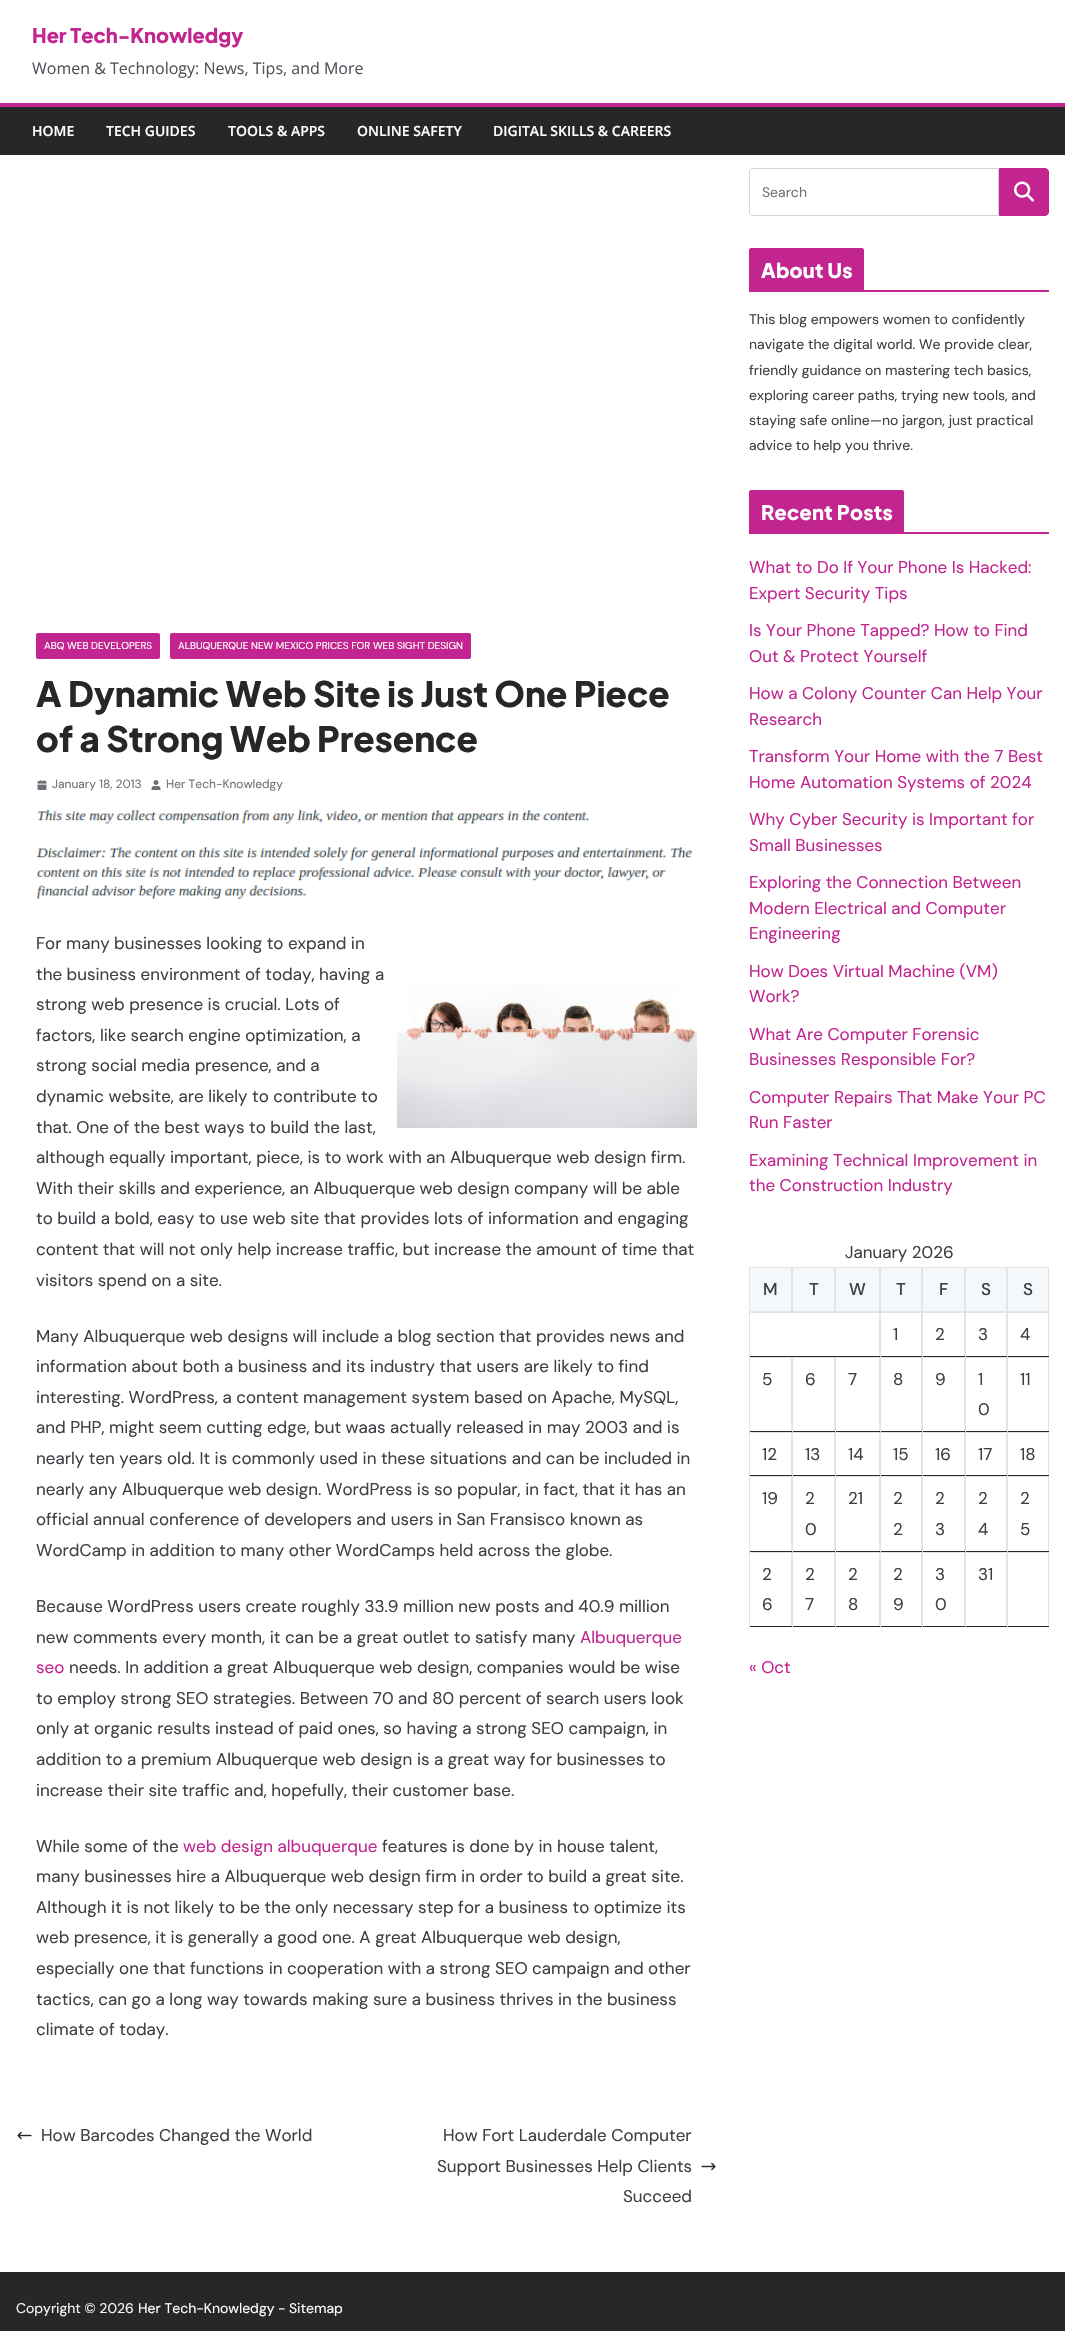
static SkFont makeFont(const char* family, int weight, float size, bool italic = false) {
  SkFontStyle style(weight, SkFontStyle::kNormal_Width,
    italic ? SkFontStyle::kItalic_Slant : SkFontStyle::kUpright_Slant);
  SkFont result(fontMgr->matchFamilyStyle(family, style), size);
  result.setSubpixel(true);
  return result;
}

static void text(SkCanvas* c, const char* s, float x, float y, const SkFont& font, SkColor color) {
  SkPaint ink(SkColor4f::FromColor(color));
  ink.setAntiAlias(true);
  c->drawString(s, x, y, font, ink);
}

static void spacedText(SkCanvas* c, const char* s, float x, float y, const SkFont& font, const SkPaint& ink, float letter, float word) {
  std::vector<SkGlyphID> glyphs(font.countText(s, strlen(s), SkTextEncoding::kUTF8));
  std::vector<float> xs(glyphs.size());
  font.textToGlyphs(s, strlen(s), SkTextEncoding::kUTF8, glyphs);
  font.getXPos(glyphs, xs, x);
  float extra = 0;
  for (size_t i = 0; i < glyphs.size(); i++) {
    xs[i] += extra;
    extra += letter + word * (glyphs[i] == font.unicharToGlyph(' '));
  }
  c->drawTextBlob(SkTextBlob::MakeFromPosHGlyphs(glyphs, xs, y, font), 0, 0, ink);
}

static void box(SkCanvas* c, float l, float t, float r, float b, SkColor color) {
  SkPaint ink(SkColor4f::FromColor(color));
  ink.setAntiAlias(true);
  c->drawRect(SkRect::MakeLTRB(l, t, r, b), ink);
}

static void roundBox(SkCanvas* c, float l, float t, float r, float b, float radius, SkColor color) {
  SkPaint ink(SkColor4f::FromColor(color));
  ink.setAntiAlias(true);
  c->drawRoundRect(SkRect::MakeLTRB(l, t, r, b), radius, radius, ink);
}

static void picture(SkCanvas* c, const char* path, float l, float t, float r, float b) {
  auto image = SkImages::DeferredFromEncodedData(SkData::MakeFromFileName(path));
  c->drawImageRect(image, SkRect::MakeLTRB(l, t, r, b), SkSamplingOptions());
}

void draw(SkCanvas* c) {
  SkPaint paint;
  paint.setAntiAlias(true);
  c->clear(0xffffffff);
  SkFont face1 = makeFont("Plus Jakarta Sans", 800, 20);
  text(c, "Her Tech-Knowledgy", 32, 43, face1, 0xffc22590);
  SkFont face2 = makeFont("Open Sans", 400, 16);
  text(c, "Women & Technology: News, Tips, and More", 32, 74, face2, 0xff52525b);
  box(c, 0, 107, 1065, 155, 0xff27272a);
  box(c, 0, 103, 1065, 107, 0xffc22590);
  SkFont face3 = makeFont("Open Sans", 600, 14);
  text(c, "HOME", 32, 136, face3, 0xffffffff);
  text(c, "TECH GUIDES", 106, 136, face3, 0xffffffff);
  text(c, "TOOLS & APPS", 228, 136, face3, 0xffffffff);
  text(c, "ONLINE SAFETY", 357, 136, face3, 0xffffffff);
  text(c, "DIGITAL SKILLS & CAREERS", 493, 136, face3, 0xffffffff);
  roundBox(c, 36, 633, 160, 659, 2, 0xffc22590);
  SkFont face4 = makeFont("DM Sans", 400, 10);
  text(c, "ABQ WEB DEVELOPERS", 44, 649, face4, 0xffffffff);
  roundBox(c, 170, 633, 471, 659, 2, 0xffc22590);
  text(c, "ALBUQUERQUE NEW MEXICO PRICES FOR WEB SIGHT DESIGN", 178, 649, face4, 0xffffffff);
  SkFont face5 = makeFont("Plus Jakarta Sans", 800, 35);
  text(c, "A Dynamic Web Site is Just One Piece", 36, 707, face5, 0xff27272a);
  text(c, "of a Strong Web Presence", 36, 752, face5, 0xff27272a);
  picture(c, "img_01.png", 37, 780, 47, 790);
  SkFont face6 = makeFont("DM Sans", 400, 12);
  text(c, "January 18, 2013", 52, 788, face6, 0xff71717a);
  picture(c, "img_02.png", 151, 780, 161, 790);
  text(c, "Her Tech-Knowledgy", 166, 788, face6, 0xff71717a);
  picture(c, "img_03.png", 36, 810, 693, 899);
  SkFont face7 = makeFont("DM Sans", 400, 17);
  text(c, "For many businesses looking to expand in", 36, 949, face7, 0xff3f3f46);
  text(c, "the business environment of today, having a", 36, 980, face7, 0xff3f3f46);
  text(c, "strong web presence is crucial. Lots of", 36, 1010, face7, 0xff3f3f46);
  text(c, "factors, like search engine optimization, a", 36, 1041, face7, 0xff3f3f46);
  text(c, "strong social media presence, and a", 36, 1071, face7, 0xff3f3f46);
  text(c, "dynamic website, are likely to contribute to", 36, 1102, face7, 0xff3f3f46);
  text(c, "that. One of the best ways to build the last,", 36, 1133, face7, 0xff3f3f46);
  text(c, "although equally important, piece, is to work with an Albuquerque web design firm.", 36, 1163, face7, 0xff3f3f46);
  text(c, "With their skills and experience, an Albuquerque web design company will be able", 36, 1194, face7, 0xff3f3f46);
  text(c, "to build a bold, easy to use web site that provides lots of information and engaging", 36, 1224, face7, 0xff3f3f46);
  text(c, "content that will not only help increase traffic, but increase the amount of time that", 36, 1255, face7, 0xff3f3f46);
  text(c, "visitors spend on a site.", 36, 1286, face7, 0xff3f3f46);
  picture(c, "img_04.png", 397, 984, 697, 1128);
  text(c, "Many Albuquerque web designs will include a blog section that provides news and", 36, 1342, face7, 0xff3f3f46);
  text(c, "information about both a business and its industry that users are likely to find", 36, 1372, face7, 0xff3f3f46);
  text(c, "interesting. WordPress, a content management system based on Apache, MySQL,", 36, 1403, face7, 0xff3f3f46);
  text(c, "and PHP, might seem cutting edge, but waas actually released in may 2003 and is", 36, 1433, face7, 0xff3f3f46);
  text(c, "nearly ten years old. It is commonly used in these situations and can be included in", 36, 1464, face7, 0xff3f3f46);
  text(c, "nearly any Albuquerque web design. WordPress is so popular, in fact, that it has an", 36, 1495, face7, 0xff3f3f46);
  text(c, "official annual conference of developers and users in San Fransisco known as", 36, 1525, face7, 0xff3f3f46);
  text(c, "WordCamp in addition to many other WordCamps held across the globe.", 36, 1556, face7, 0xff3f3f46);
  text(c, "Because WordPress users create roughly 33.9 million new posts and 40.9 million", 36, 1612, face7, 0xff3f3f46);
  text(c, "new comments every month, it can be a great outlet to satisfy many", 36, 1643, face7, 0xff3f3f46);
  text(c, "Albuquerque", 580, 1643, face7, 0xffc22590);
  text(c, "seo", 36, 1673, face7, 0xffc22590);
  text(c, "needs. In addition a great Albuquerque web design, companies would be wise", 69, 1673, face7, 0xff3f3f46);
  text(c, "to employ strong SEO strategies. Between 70 and 80 percent of search users look", 36, 1704, face7, 0xff3f3f46);
  text(c, "only at organic results instead of paid ones, so having a strong SEO campaign, in", 36, 1734, face7, 0xff3f3f46);
  text(c, "addition to a premium Albuquerque web design is a great way for businesses to", 36, 1765, face7, 0xff3f3f46);
  text(c, "increase their site traffic and, hopefully, their customer base.", 36, 1796, face7, 0xff3f3f46);
  text(c, "While some of the", 36, 1852, face7, 0xff3f3f46);
  text(c, "web design albuquerque", 183, 1852, face7, 0xffc22590);
  text(c, "features is done by in house talent,", 382, 1852, face7, 0xff3f3f46);
  text(c, "many businesses hire a Albuquerque web design firm in order to build a great site.", 36, 1882, face7, 0xff3f3f46);
  text(c, "Although it is not likely to be the only necessary step for a business to optimize its", 36, 1913, face7, 0xff3f3f46);
  text(c, "web presence, it is generally a good one. A great Albuquerque web design,", 36, 1943, face7, 0xff3f3f46);
  text(c, "especially one that functions in cooperation with a strong SEO campaign and other", 36, 1974, face7, 0xff3f3f46);
  text(c, "tactics, can go a long way towards making sure a business thrives in the business", 36, 2005, face7, 0xff3f3f46);
  text(c, "climate of today.", 36, 2035, face7, 0xff3f3f46);
  picture(c, "img_05.png", 17, 2131, 32, 2140);
  text(c, "How Barcodes Changed the World", 41, 2141, face7, 0xff3f3f46);
  text(c, "How Fort Lauderdale Computer", 443, 2141, face7, 0xff3f3f46);
  text(c, "Support Businesses Help Clients", 437, 2172, face7, 0xff3f3f46);
  picture(c, "img_06.png", 701, 2162, 716, 2171);
  text(c, "Succeed", 623, 2202, face7, 0xff3f3f46);
  paint.setStyle(SkPaint::kStroke_Style);
  paint.setStrokeWidth(1);
  paint.setColor(0xffd4d4d8);
  c->drawPath(SkPathBuilder().moveTo(753, 168.5f).lineTo(998.5f, 168.5f).lineTo(998.5f, 215.5f).lineTo(753, 215.5f).cubicTo(751, 215.5f, 749.5f, 214, 749.5f, 212).lineTo(749.5f, 172).cubicTo(749.5f, 170, 751, 168.5f, 753, 168.5f).close().detach(), paint);
  SkFont face8 = makeFont("DM Sans", 400, 14);
  text(c, "Search", 762, 197, face8, 0xff71717a);
  paint.setStyle(SkPaint::kFill_Style);
  paint.setColor(0xffc22590);
  c->drawPath(SkPathBuilder().moveTo(999.5f, 168.5f).lineTo(1045, 168.5f).cubicTo(1047, 168.5f, 1048.5f, 170, 1048.5f, 172).lineTo(1048.5f, 212).cubicTo(1048.5f, 214, 1047, 215.5f, 1045, 215.5f).lineTo(999.5f, 215.5f).close().detach(), paint);
  paint.setStyle(SkPaint::kStroke_Style);
  c->drawPath(SkPathBuilder().moveTo(999.5f, 168.5f).lineTo(1045, 168.5f).cubicTo(1047, 168.5f, 1048.5f, 170, 1048.5f, 172).lineTo(1048.5f, 212).cubicTo(1048.5f, 214, 1047, 215.5f, 1045, 215.5f).lineTo(999.5f, 215.5f).close().detach(), paint);
  picture(c, "img_07.png", 1014, 181, 1034, 202);
  box(c, 749, 290, 1049, 292, 0xffc22590);
  paint.setStyle(SkPaint::kFill_Style);
  c->drawPath(SkPathBuilder().moveTo(751, 248).lineTo(862, 248).cubicTo(863, 248, 864, 249, 864, 250).lineTo(864, 290).lineTo(749, 290).lineTo(749, 250).cubicTo(749, 249, 750, 248, 751, 248).close().detach(), paint);
  paint.setColor(0xffffffff);
  spacedText(c, "About Us", 761, 278, face1, paint, 0.25f, 0);
  text(c, "This blog empowers women to confidently", 749, 324, face8, 0xff3f3f46);
  text(c, "navigate the digital world. We provide clear,", 749, 349, face8, 0xff3f3f46);
  text(c, "friendly guidance on mastering tech basics,", 749, 375, face8, 0xff3f3f46);
  text(c, "exploring career paths, trying new tools, and", 749, 400, face8, 0xff3f3f46);
  text(c, "staying safe online—no jargon, just practical", 749, 425, face8, 0xff3f3f46);
  text(c, "advice to help you thrive.", 749, 450, face8, 0xff3f3f46);
  box(c, 749, 532, 1049, 534, 0xffc22590);
  paint.setColor(0xffc22590);
  c->drawPath(SkPathBuilder().moveTo(751, 490).lineTo(902, 490).cubicTo(903, 490, 904, 491, 904, 492).lineTo(904, 532).lineTo(749, 532).lineTo(749, 492).cubicTo(749, 491, 750, 490, 751, 490).close().detach(), paint);
  paint.setColor(0xffffffff);
  spacedText(c, "Recent Posts", 761, 520, face1, paint, 0.25f, 0);
  text(c, "What to Do If Your Phone Is Hacked:", 749, 573, face7, 0xffc22590);
  text(c, "Expert Security Tips", 749, 599, face7, 0xffc22590);
  text(c, "Is Your Phone Tapped? How to Find", 749, 636, face7, 0xffc22590);
  text(c, "Out & Protect Yourself", 749, 662, face7, 0xffc22590);
  text(c, "How a Colony Counter Can Help Your", 749, 699, face7, 0xffc22590);
  text(c, "Research", 749, 725, face7, 0xffc22590);
  text(c, "Transform Your Home with the 7 Best", 749, 762, face7, 0xffc22590);
  text(c, "Home Automation Systems of 2024", 749, 788, face7, 0xffc22590);
  text(c, "Why Cyber Security is Important for", 749, 825, face7, 0xffc22590);
  text(c, "Small Businesses", 749, 851, face7, 0xffc22590);
  text(c, "Exploring the Connection Between", 749, 888, face7, 0xffc22590);
  text(c, "Modern Electrical and Computer", 749, 914, face7, 0xffc22590);
  text(c, "Engineering", 749, 939, face7, 0xffc22590);
  text(c, "How Does Virtual Machine (VM)", 749, 977, face7, 0xffc22590);
  text(c, "Work?", 749, 1002, face7, 0xffc22590);
  text(c, "What Are Computer Forensic", 749, 1040, face7, 0xffc22590);
  text(c, "Businesses Responsible For?", 749, 1065, face7, 0xffc22590);
  text(c, "Computer Repairs That Make Your PC", 749, 1103, face7, 0xffc22590);
  text(c, "Run Faster", 749, 1128, face7, 0xffc22590);
  text(c, "Examining Technical Improvement in", 749, 1166, face7, 0xffc22590);
  text(c, "the Construction Industry", 749, 1191, face7, 0xffc22590);
  text(c, "January 2026", 845, 1258, face7, 0xff3f3f46);
  box(c, 750, 1268, 1048, 1311, 0xfff4f8fb);
  paint.setStyle(SkPaint::kStroke_Style);
  paint.setColor(0xffe4e4e7);
  c->drawRect(SkRect::MakeLTRB(749.5f, 1267.5f, 791.5f, 1311.5f), paint);
  SkFont face9 = makeFont("DM Sans", 500, 17);
  text(c, "M", 763, 1295, face9, 0xff3f3f46);
  c->drawRect(SkRect::MakeLTRB(792.5f, 1267.5f, 834.5f, 1311.5f), paint);
  SkFont face10 = makeFont("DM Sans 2", 500, 17);
  text(c, "T", 809, 1295, face10, 0xff3f3f46);
  c->drawRect(SkRect::MakeLTRB(835.5f, 1267.5f, 879.5f, 1311.5f), paint);
  text(c, "W", 849, 1295, face10, 0xff3f3f46);
  c->drawRect(SkRect::MakeLTRB(880.5f, 1267.5f, 921.5f, 1311.5f), paint);
  text(c, "T", 896, 1295, face10, 0xff3f3f46);
  c->drawRect(SkRect::MakeLTRB(922.5f, 1267.5f, 964.5f, 1311.5f), paint);
  text(c, "F", 939, 1295, face9, 0xff3f3f46);
  c->drawRect(SkRect::MakeLTRB(965.5f, 1267.5f, 1006.5f, 1311.5f), paint);
  text(c, "S", 981, 1295, face9, 0xff3f3f46);
  c->drawRect(SkRect::MakeLTRB(1007.5f, 1267.5f, 1048.5f, 1311.5f), paint);
  text(c, "S", 1023, 1295, face9, 0xff3f3f46);
  box(c, 749, 1312, 1049, 1313, 0xffe4e4e7);
  box(c, 879, 1312, 880, 1357, 0xffe4e4e7);
  box(c, 749, 1356, 880, 1357, 0xff27272a);
  box(c, 749, 1312, 750, 1357, 0xffe4e4e7);
  box(c, 921, 1312, 922, 1357, 0xffe4e4e7);
  box(c, 880, 1356, 922, 1357, 0xff27272a);
  box(c, 880, 1312, 881, 1357, 0xffe4e4e7);
  text(c, "1", 893, 1340, face7, 0xff3f3f46);
  box(c, 964, 1312, 965, 1357, 0xffe4e4e7);
  box(c, 922, 1356, 965, 1357, 0xff27272a);
  box(c, 922, 1312, 923, 1357, 0xffe4e4e7);
  text(c, "2", 935, 1340, face7, 0xff3f3f46);
  box(c, 1006, 1312, 1007, 1357, 0xffe4e4e7);
  box(c, 965, 1356, 1007, 1357, 0xff27272a);
  box(c, 965, 1312, 966, 1357, 0xffe4e4e7);
  text(c, "3", 978, 1340, face7, 0xff3f3f46);
  box(c, 1048, 1312, 1049, 1357, 0xffe4e4e7);
  box(c, 1007, 1356, 1049, 1357, 0xff27272a);
  box(c, 1007, 1312, 1008, 1357, 0xffe4e4e7);
  text(c, "4", 1020, 1340, face7, 0xff3f3f46);
  box(c, 749, 1357, 1049, 1358, 0xffe4e4e7);
  box(c, 791, 1357, 792, 1432, 0xffe4e4e7);
  box(c, 749, 1431, 792, 1432, 0xff27272a);
  box(c, 749, 1357, 750, 1432, 0xffe4e4e7);
  text(c, "5", 762, 1385, face7, 0xff3f3f46);
  box(c, 834, 1357, 835, 1432, 0xffe4e4e7);
  box(c, 792, 1431, 835, 1432, 0xff27272a);
  box(c, 792, 1357, 793, 1432, 0xffe4e4e7);
  text(c, "6", 805, 1385, face7, 0xff3f3f46);
  box(c, 879, 1357, 880, 1432, 0xffe4e4e7);
  box(c, 835, 1431, 880, 1432, 0xff27272a);
  box(c, 835, 1357, 836, 1432, 0xffe4e4e7);
  text(c, "7", 848, 1385, face7, 0xff3f3f46);
  box(c, 921, 1357, 922, 1432, 0xffe4e4e7);
  box(c, 880, 1431, 922, 1432, 0xff27272a);
  box(c, 880, 1357, 881, 1432, 0xffe4e4e7);
  text(c, "8", 893, 1385, face7, 0xff3f3f46);
  box(c, 964, 1357, 965, 1432, 0xffe4e4e7);
  box(c, 922, 1431, 965, 1432, 0xff27272a);
  box(c, 922, 1357, 923, 1432, 0xffe4e4e7);
  text(c, "9", 935, 1385, face7, 0xff3f3f46);
  box(c, 1006, 1357, 1007, 1432, 0xffe4e4e7);
  box(c, 965, 1431, 1007, 1432, 0xff27272a);
  box(c, 965, 1357, 966, 1432, 0xffe4e4e7);
  text(c, "1", 978, 1385, face7, 0xff3f3f46);
  text(c, "0", 978, 1415, face7, 0xff3f3f46);
  box(c, 1048, 1357, 1049, 1432, 0xffe4e4e7);
  box(c, 1007, 1431, 1049, 1432, 0xff27272a);
  box(c, 1007, 1357, 1008, 1432, 0xffe4e4e7);
  text(c, "11", 1020, 1385, face7, 0xff3f3f46);
  box(c, 749, 1432, 1049, 1433, 0xffe4e4e7);
  box(c, 791, 1432, 792, 1476, 0xffe4e4e7);
  box(c, 749, 1475, 792, 1476, 0xff27272a);
  box(c, 749, 1432, 750, 1476, 0xffe4e4e7);
  text(c, "12", 762, 1460, face7, 0xff3f3f46);
  box(c, 834, 1432, 835, 1476, 0xffe4e4e7);
  box(c, 792, 1475, 835, 1476, 0xff27272a);
  box(c, 792, 1432, 793, 1476, 0xffe4e4e7);
  text(c, "13", 805, 1460, face7, 0xff3f3f46);
  box(c, 879, 1432, 880, 1476, 0xffe4e4e7);
  box(c, 835, 1475, 880, 1476, 0xff27272a);
  box(c, 835, 1432, 836, 1476, 0xffe4e4e7);
  text(c, "14", 848, 1460, face7, 0xff3f3f46);
  box(c, 921, 1432, 922, 1476, 0xffe4e4e7);
  box(c, 880, 1475, 922, 1476, 0xff27272a);
  box(c, 880, 1432, 881, 1476, 0xffe4e4e7);
  text(c, "15", 893, 1460, face7, 0xff3f3f46);
  box(c, 964, 1432, 965, 1476, 0xffe4e4e7);
  box(c, 922, 1475, 965, 1476, 0xff27272a);
  box(c, 922, 1432, 923, 1476, 0xffe4e4e7);
  text(c, "16", 935, 1460, face7, 0xff3f3f46);
  box(c, 1006, 1432, 1007, 1476, 0xffe4e4e7);
  box(c, 965, 1475, 1007, 1476, 0xff27272a);
  box(c, 965, 1432, 966, 1476, 0xffe4e4e7);
  text(c, "17", 978, 1460, face7, 0xff3f3f46);
  box(c, 1048, 1432, 1049, 1476, 0xffe4e4e7);
  box(c, 1007, 1475, 1049, 1476, 0xff27272a);
  box(c, 1007, 1432, 1008, 1476, 0xffe4e4e7);
  text(c, "18", 1020, 1460, face7, 0xff3f3f46);
  box(c, 749, 1476, 1049, 1477, 0xffe4e4e7);
  box(c, 791, 1476, 792, 1552, 0xffe4e4e7);
  box(c, 749, 1551, 792, 1552, 0xff27272a);
  box(c, 749, 1476, 750, 1552, 0xffe4e4e7);
  text(c, "19", 762, 1504, face7, 0xff3f3f46);
  box(c, 834, 1476, 835, 1552, 0xffe4e4e7);
  box(c, 792, 1551, 835, 1552, 0xff27272a);
  box(c, 792, 1476, 793, 1552, 0xffe4e4e7);
  text(c, "2", 805, 1504, face7, 0xff3f3f46);
  text(c, "0", 805, 1535, face7, 0xff3f3f46);
  box(c, 879, 1476, 880, 1552, 0xffe4e4e7);
  box(c, 835, 1551, 880, 1552, 0xff27272a);
  box(c, 835, 1476, 836, 1552, 0xffe4e4e7);
  text(c, "21", 848, 1504, face7, 0xff3f3f46);
  box(c, 921, 1476, 922, 1552, 0xffe4e4e7);
  box(c, 880, 1551, 922, 1552, 0xff27272a);
  box(c, 880, 1476, 881, 1552, 0xffe4e4e7);
  text(c, "2", 893, 1504, face7, 0xff3f3f46);
  text(c, "2", 893, 1535, face7, 0xff3f3f46);
  box(c, 964, 1476, 965, 1552, 0xffe4e4e7);
  box(c, 922, 1551, 965, 1552, 0xff27272a);
  box(c, 922, 1476, 923, 1552, 0xffe4e4e7);
  text(c, "2", 935, 1504, face7, 0xff3f3f46);
  text(c, "3", 935, 1535, face7, 0xff3f3f46);
  box(c, 1006, 1476, 1007, 1552, 0xffe4e4e7);
  box(c, 965, 1551, 1007, 1552, 0xff27272a);
  box(c, 965, 1476, 966, 1552, 0xffe4e4e7);
  text(c, "2", 978, 1504, face7, 0xff3f3f46);
  text(c, "4", 978, 1535, face7, 0xff3f3f46);
  box(c, 1048, 1476, 1049, 1552, 0xffe4e4e7);
  box(c, 1007, 1551, 1049, 1552, 0xff27272a);
  box(c, 1007, 1476, 1008, 1552, 0xffe4e4e7);
  text(c, "2", 1020, 1504, face7, 0xff3f3f46);
  text(c, "5", 1020, 1535, face7, 0xff3f3f46);
  box(c, 749, 1552, 1049, 1553, 0xffe4e4e7);
  box(c, 791, 1552, 792, 1627, 0xffe4e4e7);
  box(c, 749, 1626, 792, 1627, 0xff27272a);
  box(c, 749, 1552, 750, 1627, 0xffe4e4e7);
  text(c, "2", 762, 1580, face7, 0xff3f3f46);
  text(c, "6", 762, 1610, face7, 0xff3f3f46);
  box(c, 834, 1552, 835, 1627, 0xffe4e4e7);
  box(c, 792, 1626, 835, 1627, 0xff27272a);
  box(c, 792, 1552, 793, 1627, 0xffe4e4e7);
  text(c, "2", 805, 1580, face7, 0xff3f3f46);
  text(c, "7", 805, 1610, face7, 0xff3f3f46);
  box(c, 879, 1552, 880, 1627, 0xffe4e4e7);
  box(c, 835, 1626, 880, 1627, 0xff27272a);
  box(c, 835, 1552, 836, 1627, 0xffe4e4e7);
  text(c, "2", 848, 1580, face7, 0xff3f3f46);
  text(c, "8", 848, 1610, face7, 0xff3f3f46);
  box(c, 921, 1552, 922, 1627, 0xffe4e4e7);
  box(c, 880, 1626, 922, 1627, 0xff27272a);
  box(c, 880, 1552, 881, 1627, 0xffe4e4e7);
  text(c, "2", 893, 1580, face7, 0xff3f3f46);
  text(c, "9", 893, 1610, face7, 0xff3f3f46);
  box(c, 964, 1552, 965, 1627, 0xffe4e4e7);
  box(c, 922, 1626, 965, 1627, 0xff27272a);
  box(c, 922, 1552, 923, 1627, 0xffe4e4e7);
  text(c, "3", 935, 1580, face7, 0xff3f3f46);
  text(c, "0", 935, 1610, face7, 0xff3f3f46);
  box(c, 1006, 1552, 1007, 1627, 0xffe4e4e7);
  box(c, 965, 1626, 1007, 1627, 0xff27272a);
  box(c, 965, 1552, 966, 1627, 0xffe4e4e7);
  text(c, "31", 978, 1580, face7, 0xff3f3f46);
  box(c, 1048, 1552, 1049, 1627, 0xffe4e4e7);
  box(c, 1007, 1626, 1049, 1627, 0xff27272a);
  box(c, 1007, 1552, 1008, 1627, 0xffe4e4e7);
  text(c, "« Oct", 749, 1673, face7, 0xffc22590);
  box(c, 0, 2272, 1065, 2331, 0xff27272a);
  text(c, "Copyright © 2026", 16, 2313, face8, 0xfff4f4f5);
  text(c, "Her Tech-Knowledgy", 138, 2313, face8, 0xffffffff);
  text(c, "-", 278, 2313, face8, 0xfff4f4f5);
  text(c, "Sitemap", 289, 2313, face8, 0xffffffff);
}
